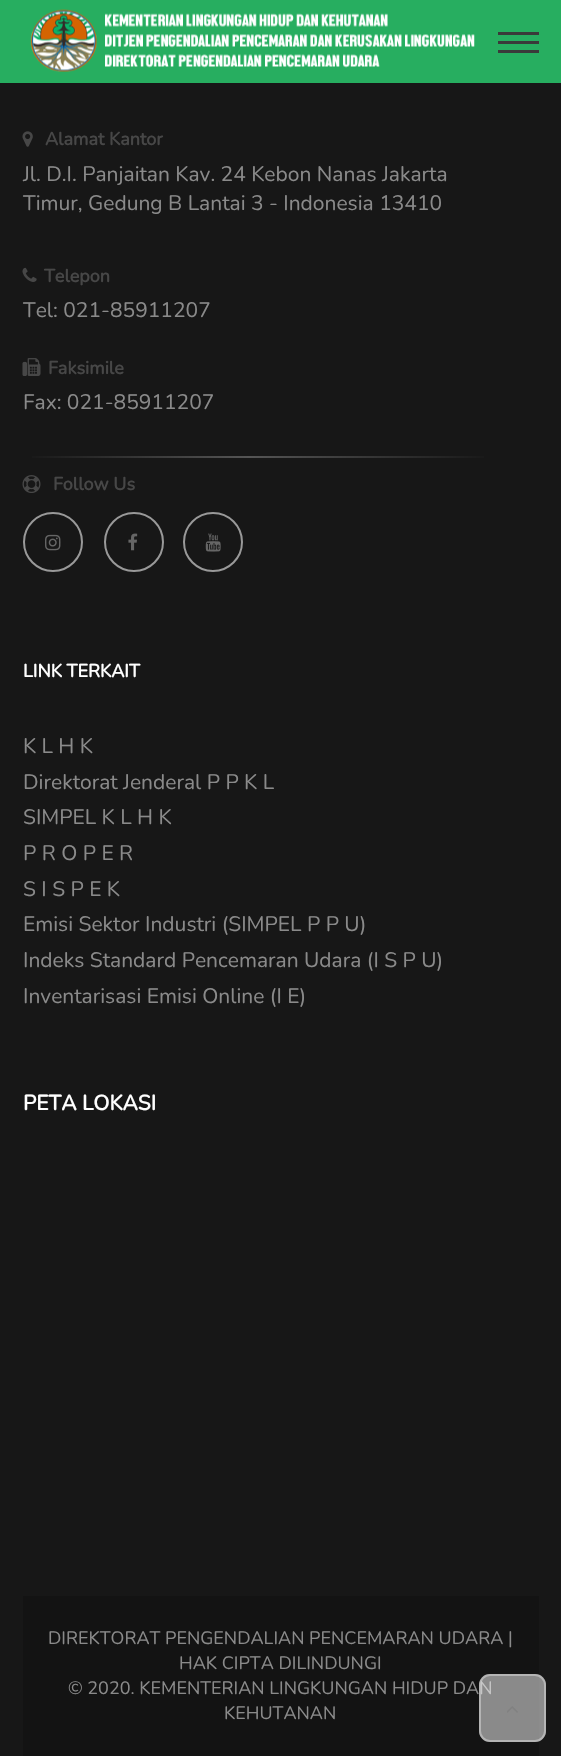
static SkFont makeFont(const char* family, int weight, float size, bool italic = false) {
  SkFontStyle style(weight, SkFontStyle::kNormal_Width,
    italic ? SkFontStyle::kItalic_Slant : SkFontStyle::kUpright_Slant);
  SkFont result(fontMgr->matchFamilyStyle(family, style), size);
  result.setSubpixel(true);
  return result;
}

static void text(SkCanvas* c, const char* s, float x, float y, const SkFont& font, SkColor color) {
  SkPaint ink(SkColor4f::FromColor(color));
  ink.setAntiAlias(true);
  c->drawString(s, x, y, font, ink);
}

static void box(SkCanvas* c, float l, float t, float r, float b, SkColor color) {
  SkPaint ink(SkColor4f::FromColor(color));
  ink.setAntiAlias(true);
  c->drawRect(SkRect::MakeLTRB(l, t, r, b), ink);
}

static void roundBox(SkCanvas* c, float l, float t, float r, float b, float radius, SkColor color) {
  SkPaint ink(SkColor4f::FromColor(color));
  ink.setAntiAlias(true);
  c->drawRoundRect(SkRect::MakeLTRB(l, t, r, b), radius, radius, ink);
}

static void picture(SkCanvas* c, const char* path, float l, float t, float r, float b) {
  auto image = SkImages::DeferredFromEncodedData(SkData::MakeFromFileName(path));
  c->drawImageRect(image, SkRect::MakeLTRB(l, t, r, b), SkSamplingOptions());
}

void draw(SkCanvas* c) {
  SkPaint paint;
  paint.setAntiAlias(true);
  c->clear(0xff171717);
  box(c, 0, 0, 561, 83, 0xff27ae60);
  picture(c, "img_01.png", 30, 9, 475, 72);
  box(c, 498, 32, 539, 35, 0xff3a3a3a);
  box(c, 498, 41, 539, 44, 0xff3a3a3a);
  box(c, 498, 50, 539, 53, 0xff3a3a3a);
  picture(c, "img_02.png", 22, 131, 33, 147);
  SkFont face1 = makeFont("Nunito", 700, 18);
  text(c, "Alamat Kantor", 45, 145, face1, 0xff474747);
  SkFont face2 = makeFont("Nunito", 200, 21);
  text(c, "Jl. D.I. Panjaitan Kav. 24 Kebon Nanas Jakarta", 23, 181, face2, 0xff8a8a8a);
  text(c, "Timur, Gedung B Lantai 3 - Indonesia 13410", 23, 210, face2, 0xff8a8a8a);
  picture(c, "img_03.png", 22, 267, 37, 282);
  text(c, "Telepon", 44, 282, face1, 0xff474747);
  text(c, "Tel: 021-85911207", 23, 317, face2, 0xff8a8a8a);
  picture(c, "img_04.png", 22, 358, 41, 376);
  text(c, "Faksimile", 48, 374, face1, 0xff474747);
  text(c, "Fax: 021-85911207", 23, 409, face2, 0xff8a8a8a);
  {
    const SkColor colors[] = {0xff171717, 0xff555555, 0xff171717};
    const float stops[] = {0, 0.48f, 1};
    const SkPoint ends[] = {{23, 457}, {494, 457}};
    paint.setShader(SkGradientShader::MakeLinear(ends, colors, stops, 3, SkTileMode::kClamp));
    paint.setAlpha(255);
  }
  c->drawRect(SkRect::MakeLTRB(32, 456, 484, 458), paint);
  picture(c, "img_05.png", 22, 475, 41, 493);
  text(c, "Follow Us", 53, 490, face1, 0xff474747);
  paint.setStyle(SkPaint::kStroke_Style);
  paint.setStrokeWidth(2);
  paint.setShader(nullptr);
  paint.setColor(0xff999999);
  c->drawCircle(53, 542, 29, paint);
  picture(c, "img_06.png", 45, 534, 61, 551);
  c->drawCircle(134, 542, 29, paint);
  picture(c, "img_07.png", 128, 533, 138, 551);
  c->drawCircle(213, 542, 29, paint);
  picture(c, "img_08.png", 205, 533, 221, 552);
  text(c, "LINK TERKAIT", 23, 677, face1, 0xffffffff);
  text(c, "K L H K", 23, 753, face2, 0xff8a8a8a);
  text(c, "Direktorat Jenderal P P K L", 23, 789, face2, 0xff8a8a8a);
  text(c, "SIMPEL K L H K", 23, 824, face2, 0xff8a8a8a);
  text(c, "P R O P E R", 23, 860, face2, 0xff8a8a8a);
  text(c, "S I S P E K", 23, 896, face2, 0xff8a8a8a);
  text(c, "Emisi Sektor Industri (SIMPEL P P U)", 23, 931, face2, 0xff8a8a8a);
  text(c, "Indeks Standard Pencemaran Udara (I S P U)", 23, 967, face2, 0xff8a8a8a);
  text(c, "Inventarisasi Emisi Online (I E)", 23, 1003, face2, 0xff8a8a8a);
  SkFont face3 = makeFont("Nunito", 700, 21);
  text(c, "PETA LOKASI", 23, 1110, face3, 0xffffffff);
  box(c, 23, 1596, 539, 1756, 0xff131313);
  SkFont face4 = makeFont("Nunito", 200, 18);
  text(c, "DIREKTORAT PENGENDALIAN PENCEMARAN UDARA |", 48, 1644, face4, 0xff8a8a8a);
  text(c, "HAK CIPTA DILINDUNGI", 179, 1669, face4, 0xff8a8a8a);
  text(c, "© 2020. KEMENTERIAN LINGKUNGAN HIDUP DAN", 68, 1694, face4, 0xff8a8a8a);
  text(c, "KEHUTANAN", 224, 1719, face4, 0xff8a8a8a);
  roundBox(c, 479, 1674, 546, 1742, 11, 0x80ffffff);
  paint.setColor(0x80dddddd);
  c->drawRoundRect(SkRect::MakeLTRB(480, 1675, 545, 1741), 10, 10, paint);
  picture(c, "img_09.png", 507, 1706, 518, 1713);
}
